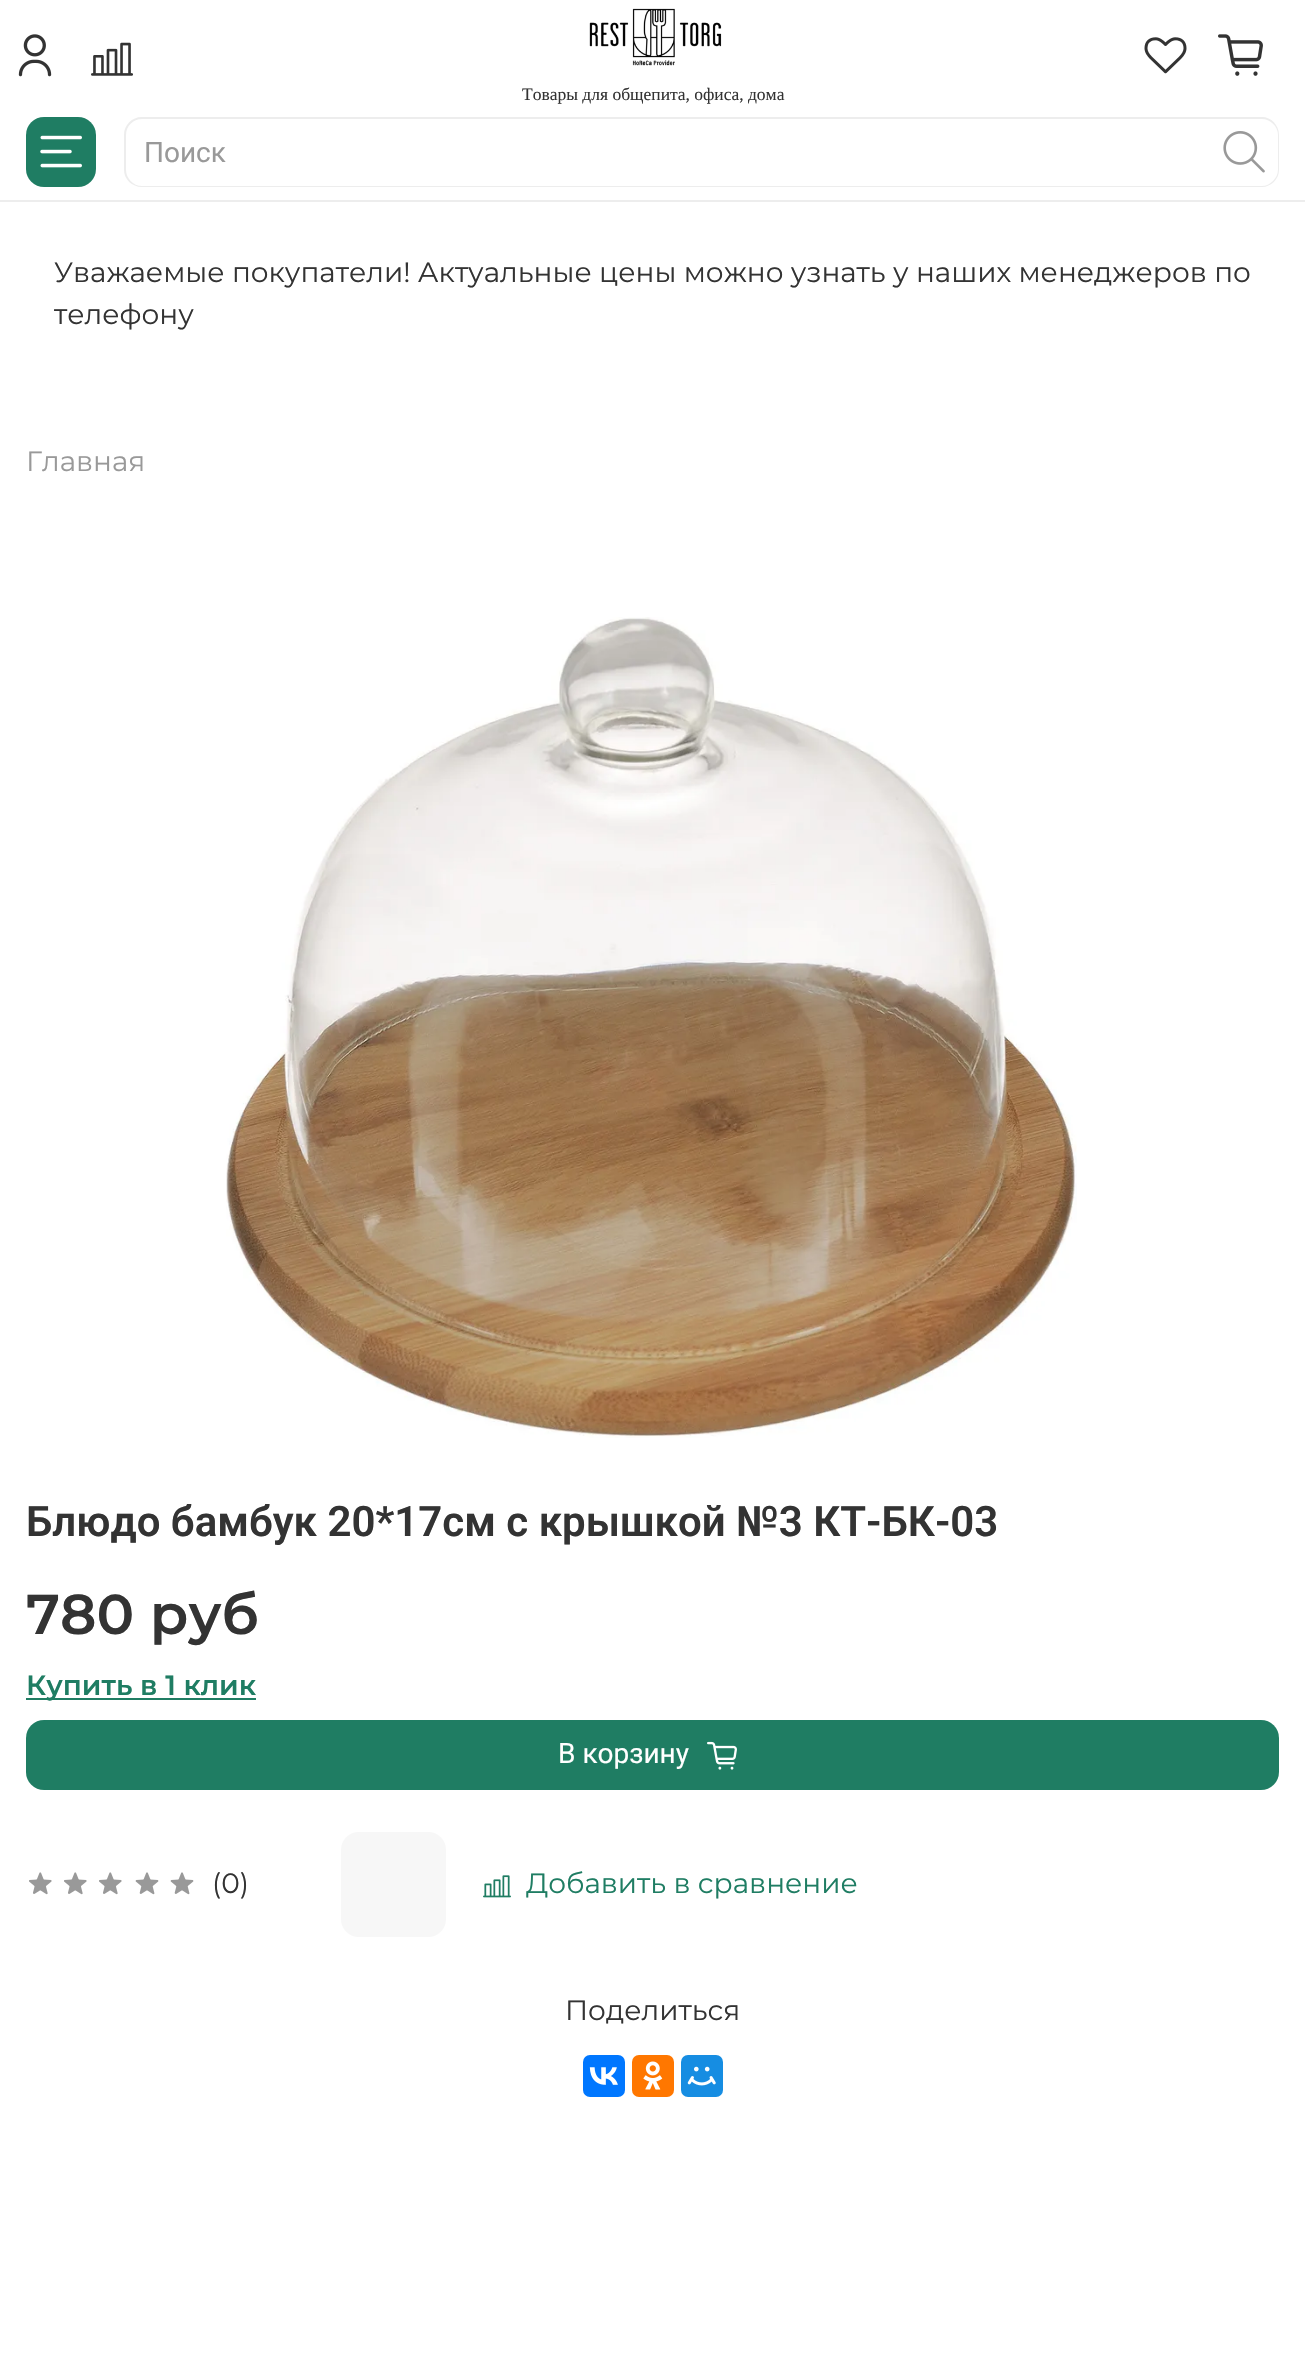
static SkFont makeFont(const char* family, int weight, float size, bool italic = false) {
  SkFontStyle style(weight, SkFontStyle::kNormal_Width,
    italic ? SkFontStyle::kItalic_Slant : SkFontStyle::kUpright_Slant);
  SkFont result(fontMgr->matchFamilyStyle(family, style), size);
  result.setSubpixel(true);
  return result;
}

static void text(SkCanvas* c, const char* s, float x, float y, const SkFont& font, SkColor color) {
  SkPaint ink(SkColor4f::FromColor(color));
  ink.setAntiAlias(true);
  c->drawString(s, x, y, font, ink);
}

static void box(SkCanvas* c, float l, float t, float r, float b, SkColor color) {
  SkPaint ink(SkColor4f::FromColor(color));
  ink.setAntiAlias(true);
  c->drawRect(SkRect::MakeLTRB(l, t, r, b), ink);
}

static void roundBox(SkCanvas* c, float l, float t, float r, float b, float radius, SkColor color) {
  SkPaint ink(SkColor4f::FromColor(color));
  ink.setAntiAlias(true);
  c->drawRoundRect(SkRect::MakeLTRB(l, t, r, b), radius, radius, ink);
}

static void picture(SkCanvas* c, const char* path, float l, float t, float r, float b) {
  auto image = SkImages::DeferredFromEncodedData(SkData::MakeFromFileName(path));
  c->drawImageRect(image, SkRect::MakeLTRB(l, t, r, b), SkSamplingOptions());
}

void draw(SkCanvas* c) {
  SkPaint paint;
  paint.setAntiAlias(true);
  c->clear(0xffffffff);
  box(c, 0, 200, 1305, 202, 0xffededed);
  picture(c, "img_01.png", 18, 34, 52, 77);
  picture(c, "img_02.png", 91, 42, 133, 76);
  picture(c, "img_03.png", 1144, 37, 1187, 74);
  picture(c, "img_04.png", 1218, 34, 1263, 76);
  picture(c, "img_05.png", 589, 8, 722, 66);
  SkFont face1 = makeFont("Liberation Serif", 400, 17.5f);
  text(c, "Товары для общепита, офиса, дома", 522, 100, face1, 0xff333333);
  roundBox(c, 26, 117, 96, 187, 18, 0xff1f7d63);
  picture(c, "img_06.png", 40, 135, 82, 168);
  paint.setColor(0xffededed);
  c->drawPath(SkPathBuilder(SkPathFillType::kEvenOdd).moveTo(142, 117).lineTo(1209, 117).lineTo(1209, 187).lineTo(142, 187).cubicTo(132, 187, 124, 179, 124, 170).lineTo(124, 135).cubicTo(124, 125, 132, 117, 142, 117).close().moveTo(142, 119).lineTo(1209, 119).lineTo(1209, 186).lineTo(142, 186).cubicTo(133, 186, 126, 178, 126, 170).lineTo(126, 135).cubicTo(126, 126, 133, 119, 142, 119).close().detach(), paint);
  SkFont face2 = makeFont("Roboto", 400, 28);
  text(c, "Поиск", 144, 162, face2, 0xff999999);
  c->drawPath(SkPathBuilder(SkPathFillType::kEvenOdd).moveTo(1209, 117).lineTo(1262, 117).cubicTo(1271, 117, 1279, 125, 1279, 135).lineTo(1279, 170).cubicTo(1279, 179, 1271, 187, 1262, 187).lineTo(1209, 187).close().moveTo(1209, 119).lineTo(1262, 119).cubicTo(1270, 119, 1278, 126, 1278, 135).lineTo(1278, 170).cubicTo(1278, 178, 1270, 186, 1262, 186).lineTo(1209, 186).close().detach(), paint);
  picture(c, "img_07.png", 1223, 131, 1265, 173);
  SkFont face3 = makeFont("Montserrat", 400, 28);
  text(c, "Уважаемые покупатели! Актуальные цены можно узнать у наших менеджеров по", 54, 282, face3, 0xff333333);
  text(c, "телефону", 54, 324, face3, 0xff333333);
  text(c, "Главная", 26, 471, face3, 0xff999999);
  picture(c, "img_08.png", 226, 617, 1077, 1438);
  SkFont face4 = makeFont("Roboto", 600, 42);
  text(c, "Блюдо бамбук 20*17см с крышкой №3 КТ-БК-03", 26, 1536, face4, 0xff333333);
  SkFont face5 = makeFont("Montserrat", 600, 56);
  text(c, "780 руб", 26, 1634, face5, 0xff333333);
  box(c, 26, 1698, 256, 1700, 0xff1f7d63);
  SkFont face6 = makeFont("Montserrat", 600, 28);
  text(c, "Купить в 1 клик", 26, 1695, face6, 0xff1f7d63);
  roundBox(c, 26, 1720, 1279, 1790, 18, 0xff1f7d63);
  text(c, "В корзину", 558, 1763, face2, 0xffffffff);
  picture(c, "img_09.png", 707, 1741, 737, 1770);
  picture(c, "img_10.png", 29, 1872, 52, 1895);
  picture(c, "img_10.png", 64, 1872, 87, 1895);
  picture(c, "img_10.png", 99, 1872, 122, 1895);
  picture(c, "img_11.png", 135, 1872, 159, 1895);
  picture(c, "img_11.png", 170, 1872, 194, 1895);
  text(c, "(0)", 212, 1893, face3, 0xff333333);
  roundBox(c, 341, 1832, 446, 1937, 18, 0xfff7f7f7);
  picture(c, "img_12.png", 483, 1875, 511, 1898);
  text(c, "Добавить в сравнение", 526, 1893, face3, 0xff1f7d63);
  text(c, "Поделиться", 565, 2020, face3, 0xff333333);
  roundBox(c, 583, 2055, 625, 2097, 7, 0xff0077ff);
  picture(c, "img_13.png", 589, 2067, 618, 2085);
  roundBox(c, 632, 2055, 674, 2097, 7, 0xffff7700);
  picture(c, "img_14.png", 643, 2061, 663, 2090);
  roundBox(c, 681, 2055, 723, 2097, 7, 0xff168de2);
  picture(c, "img_15.png", 687, 2066, 716, 2086);
}
